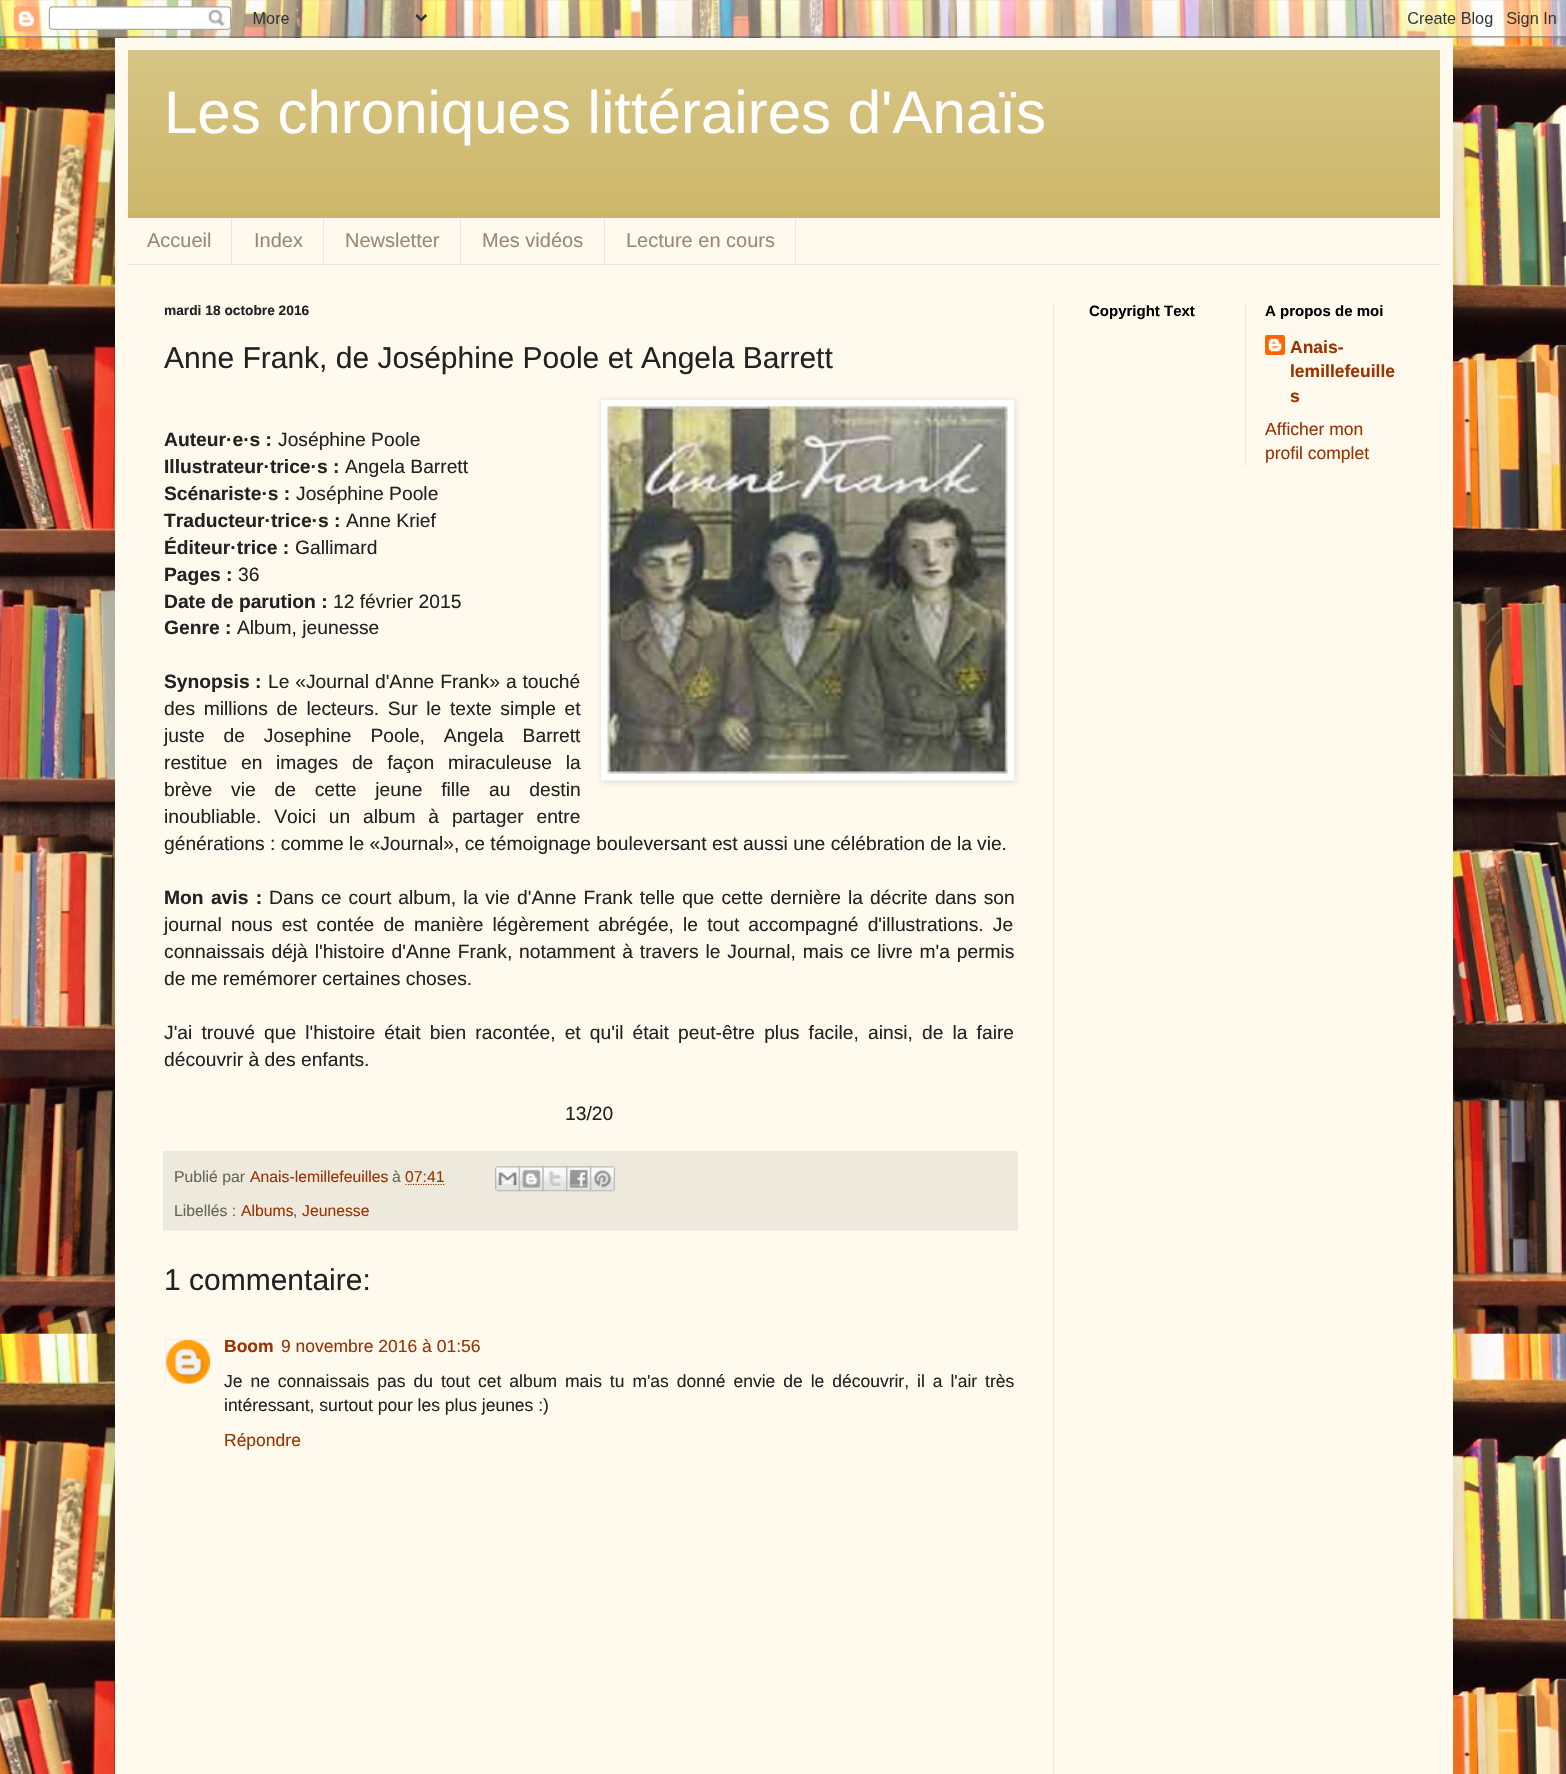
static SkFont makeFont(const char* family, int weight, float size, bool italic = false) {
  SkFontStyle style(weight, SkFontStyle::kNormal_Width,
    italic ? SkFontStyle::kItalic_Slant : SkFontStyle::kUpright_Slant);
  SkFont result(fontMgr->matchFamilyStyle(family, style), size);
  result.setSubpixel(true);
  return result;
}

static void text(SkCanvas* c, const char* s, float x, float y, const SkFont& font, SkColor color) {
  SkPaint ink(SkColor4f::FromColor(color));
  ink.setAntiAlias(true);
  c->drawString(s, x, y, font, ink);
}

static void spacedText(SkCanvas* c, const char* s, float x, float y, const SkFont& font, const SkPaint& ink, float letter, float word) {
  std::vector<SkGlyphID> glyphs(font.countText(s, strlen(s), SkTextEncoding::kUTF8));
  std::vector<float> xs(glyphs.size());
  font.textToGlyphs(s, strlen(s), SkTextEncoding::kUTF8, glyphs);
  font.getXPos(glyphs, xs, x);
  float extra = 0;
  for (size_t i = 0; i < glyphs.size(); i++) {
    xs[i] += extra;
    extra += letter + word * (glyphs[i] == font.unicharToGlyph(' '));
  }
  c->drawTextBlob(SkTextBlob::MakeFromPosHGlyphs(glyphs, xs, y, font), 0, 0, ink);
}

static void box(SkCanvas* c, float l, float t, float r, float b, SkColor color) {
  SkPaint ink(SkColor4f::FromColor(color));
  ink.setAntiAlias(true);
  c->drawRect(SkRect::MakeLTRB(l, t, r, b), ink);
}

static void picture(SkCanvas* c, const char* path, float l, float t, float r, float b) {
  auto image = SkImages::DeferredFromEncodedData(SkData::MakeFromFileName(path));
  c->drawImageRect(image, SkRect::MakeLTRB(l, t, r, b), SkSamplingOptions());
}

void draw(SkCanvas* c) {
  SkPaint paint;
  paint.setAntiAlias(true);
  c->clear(0xffffffff);
  picture(c, "img_01.png", 0, 0, 1566, 1774);
  paint.setColor(0x26000000);
  paint.setMaskFilter(SkMaskFilter::MakeBlur(kNormal_SkBlurStyle, 25));
  c->drawRect(SkRect::MakeLTRB(115, 38, 1453, 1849), paint);
  paint.setMaskFilter(nullptr);
  picture(c, "img_02.png", 0, 0, 1566, 38);
  box(c, 115, 38, 1453, 1774, 0xfffff9ee);
  box(c, 128, 50, 1440, 218, 0xffccb666);
  picture(c, "img_03.png", 128, 50, 1440, 213);
  SkFont face1 = makeFont("Liberation Sans", 400, 60);
  text(c, "Les chroniques littéraires d'Anaïs", 164, 133, face1, 0xffffffff);
  box(c, 128, 264, 1440, 265, 0xffeee5dd);
  box(c, 231, 218, 232, 264, 0xffeee5dd);
  SkFont face2 = makeFont("Liberation Sans", 400, 20);
  text(c, "Accueil", 147, 247, face2, 0xff998877);
  box(c, 323, 218, 324, 264, 0xffeee5dd);
  text(c, "Index", 254, 247, face2, 0xff998877);
  box(c, 460, 218, 461, 264, 0xffeee5dd);
  text(c, "Newsletter", 345, 247, face2, 0xff998877);
  box(c, 604, 218, 605, 264, 0xffeee5dd);
  text(c, "Mes vidéos", 482, 247, face2, 0xff998877);
  box(c, 795, 218, 796, 264, 0xffeee5dd);
  text(c, "Lecture en cours", 626, 247, face2, 0xff998877);
  box(c, 1053, 303, 1054, 1774, 0xffeee5dd);
  SkFont face3 = makeFont("Liberation Sans", 700, 13.75f);
  text(c, "mardi 18 octobre 2016", 164, 315, face3, 0xff222222);
  SkFont face4 = makeFont("Liberation Sans", 400, 30);
  text(c, "Anne Frank, de Joséphine Poole et Angela Barrett", 164, 368, face4, 0xff222222);
  SkFont face5 = makeFont("Liberation Sans", 700, 19.25f);
  text(c, "Auteur·e·s :", 164, 446, face5, 0xff222222);
  SkFont face6 = makeFont("Liberation Sans", 400, 19.25f);
  text(c, "Joséphine Poole", 278, 446, face6, 0xff222222);
  paint.setColor(0x1a000000);
  paint.setMaskFilter(SkMaskFilter::MakeBlur(kNormal_SkBlurStyle, 3));
  c->drawRect(SkRect::MakeLTRB(601, 400, 1016, 783), paint);
  paint.setMaskFilter(nullptr);
  paint.setColor(0xffffffff);
  c->drawRect(SkRect::MakeLTRB(600.5f, 399.5f, 1014.5f, 780.5f), paint);
  paint.setStyle(SkPaint::kStroke_Style);
  paint.setStrokeWidth(1);
  paint.setColor(0xffeeeeee);
  c->drawRect(SkRect::MakeLTRB(600.5f, 399.5f, 1014.5f, 780.5f), paint);
  picture(c, "img_04.png", 607, 406, 1008, 774);
  text(c, "Illustrateur·trice·s :", 164, 473, face5, 0xff222222);
  text(c, "Angela Barrett", 345, 473, face6, 0xff222222);
  text(c, "Scénariste·s :", 164, 500, face5, 0xff222222);
  text(c, "Joséphine Poole", 296, 500, face6, 0xff222222);
  text(c, "Traducteur·trice·s :", 164, 527, face5, 0xff222222);
  text(c, "Anne Krief", 346, 527, face6, 0xff222222);
  text(c, "Éditeur·trice :", 164, 554, face5, 0xff222222);
  text(c, "Gallimard", 295, 554, face6, 0xff222222);
  text(c, "Pages :", 164, 581, face5, 0xff222222);
  text(c, "36", 238, 581, face6, 0xff222222);
  text(c, "Date de parution :", 164, 608, face5, 0xff222222);
  text(c, "12 février 2015", 333, 608, face6, 0xff222222);
  text(c, "Genre :", 164, 634, face5, 0xff222222);
  text(c, "Album, jeunesse", 237, 634, face6, 0xff222222);
  text(c, "Synopsis :", 164, 688, face5, 0xff222222);
  paint.setStyle(SkPaint::kFill_Style);
  paint.setColor(0xff222222);
  spacedText(c, "Le «Journal d'Anne Frank» a touché", 268, 688, face6, paint, 0, 0.5f);
  spacedText(c, "des millions de lecteurs. Sur le", 164, 715, face6, paint, 0, 3.25f);
  spacedText(c, "texte simple et", 450, 715, face6, paint, 0, 3.25f);
  spacedText(c, "juste de Josephine Poole, Angela Barrett", 164, 742, face6, paint, 0, 13.5f);
  spacedText(c, "restitue en", 164, 769, face6, paint, 0, 8.5f);
  spacedText(c, "images de façon miraculeuse la", 276, 769, face6, paint, 0, 8.5f);
  spacedText(c, "brève vie de cette jeune fille au destin", 164, 796, face6, paint, 0, 13.5f);
  spacedText(c, "inoubliable. Voici un album à partager entre", 164, 823, face6, paint, 0, 7.5f);
  text(c, "générations : comme le «Journal», ce témoignage bouleversant est aussi une célébration de la", 164, 850, face6, 0xff222222);
  text(c, "vie.", 977, 850, face6, 0xff222222);
  spacedText(c, "Mon avis :", 164, 904, face5, paint, 0, 2);
  spacedText(c, "Dans ce court album, la vie d'Anne Frank telle que cette dernière la décrite dans son", 269, 904, face6, paint, 0, 1.75f);
  spacedText(c, "journal nous est contée de manière légèrement abrégée, le tout accompagné d'illustrations. Je", 164, 931, face6, paint, 0, 3.75f);
  spacedText(c, "connaissais déjà l'histoire d'Anne Frank, notamment à travers le Journal, mais ce livre m'a permis", 164, 958, face6, paint, 0, 1.5f);
  text(c, "de me remémorer certaines choses.", 164, 985, face6, 0xff222222);
  spacedText(c, "J'ai trouvé que l'histoire était bien racontée, et qu'il était peut-être plus facile, ainsi, de la faire", 164, 1039, face6, paint, 0, 3.75f);
  text(c, "découvrir à des enfants.", 164, 1066, face6, 0xff222222);
  text(c, "13/20", 565, 1120, face6, 0xff222222);
  box(c, 163, 1151, 1018, 1230, 0xffeee9dd);
  box(c, 163, 1230, 1018, 1231, 0xffeeeeee);
  SkFont face7 = makeFont("Liberation Sans", 400, 15.75f);
  text(c, "Publié par", 174, 1182, face7, 0xff666555);
  text(c, "Anais-lemillefeuilles", 250, 1182, face7, 0xff993300);
  text(c, "à", 392, 1182, face7, 0xff666555);
  text(c, "07:41", 405, 1182, face7, 0xff993300);
  paint.setStyle(SkPaint::kStroke_Style);
  paint.setStrokeWidth(1.2f);
  paint.setColor(0xff993300);
  paint.setPathEffect(SkDashPathEffect::Make({{1.25f, 1.25f}}, 0));
  c->drawPath(SkPathBuilder().moveTo(405.5f, 1184.5f).lineTo(445, 1184.5f).detach(), paint);
  paint.setPathEffect(nullptr);
  picture(c, "img_05.png", 495, 1166, 520, 1192);
  picture(c, "img_06.png", 518, 1166, 544, 1192);
  picture(c, "img_07.png", 542, 1166, 568, 1192);
  picture(c, "img_08.png", 566, 1166, 592, 1192);
  picture(c, "img_09.png", 590, 1166, 615, 1192);
  text(c, "Libellés :", 174, 1216, face7, 0xff666555);
  text(c, "Albums", 241, 1216, face7, 0xff993300);
  text(c, ",", 293, 1216, face7, 0xff666555);
  text(c, "Jeunesse", 302, 1216, face7, 0xff993300);
  text(c, "1 commentaire:", 164, 1290, face4, 0xff222222);
  c->save();
  c->clipRect(SkRect::MakeLTRB(165, 1339, 210, 1384));
  paint.setStrokeWidth(1);
  paint.setColor(0xffeeeeee);
  c->drawRect(SkRect::MakeLTRB(165.5f, 1339.5f, 210.5f, 1384.5f), paint);
  c->restore();
  picture(c, "img_10.png", 166, 1340, 210, 1384);
  SkFont face8 = makeFont("Liberation Sans", 700, 17.5f);
  text(c, "Boom", 224, 1352, face8, 0xff993300);
  SkFont face9 = makeFont("Liberation Sans", 400, 17.5f);
  text(c, "9 novembre 2016 à 01:56", 281, 1352, face9, 0xff993300);
  paint.setStyle(SkPaint::kFill_Style);
  paint.setColor(0xff222222);
  spacedText(c, "Je ne connaissais pas du tout cet album mais tu m'as donné envie de le découvrir, il a l'air très", 224, 1387, face9, paint, 0, 3.1f);
  text(c, "intéressant, surtout pour les plus jeunes :)", 224, 1411, face9, 0xff222222);
  text(c, "Répondre", 224, 1446, face9, 0xff993300);
  SkFont face10 = makeFont("Liberation Sans", 700, 15);
  text(c, "Copyright Text", 1089, 316, face10, 0xff000000);
  box(c, 1245, 303, 1246, 466, 0xffeee5dd);
  text(c, "A propos de moi", 1265, 316, face10, 0xff000000);
  picture(c, "img_11.png", 1265, 335, 1285, 355);
  text(c, "Anais-", 1290, 353, face8, 0xff993300);
  text(c, "lemillefeuille", 1290, 377, face8, 0xff993300);
  text(c, "s", 1290, 402, face8, 0xff993300);
  text(c, "Afficher mon", 1265, 435, face9, 0xff993300);
  text(c, "profil complet", 1265, 459, face9, 0xff993300);
}
